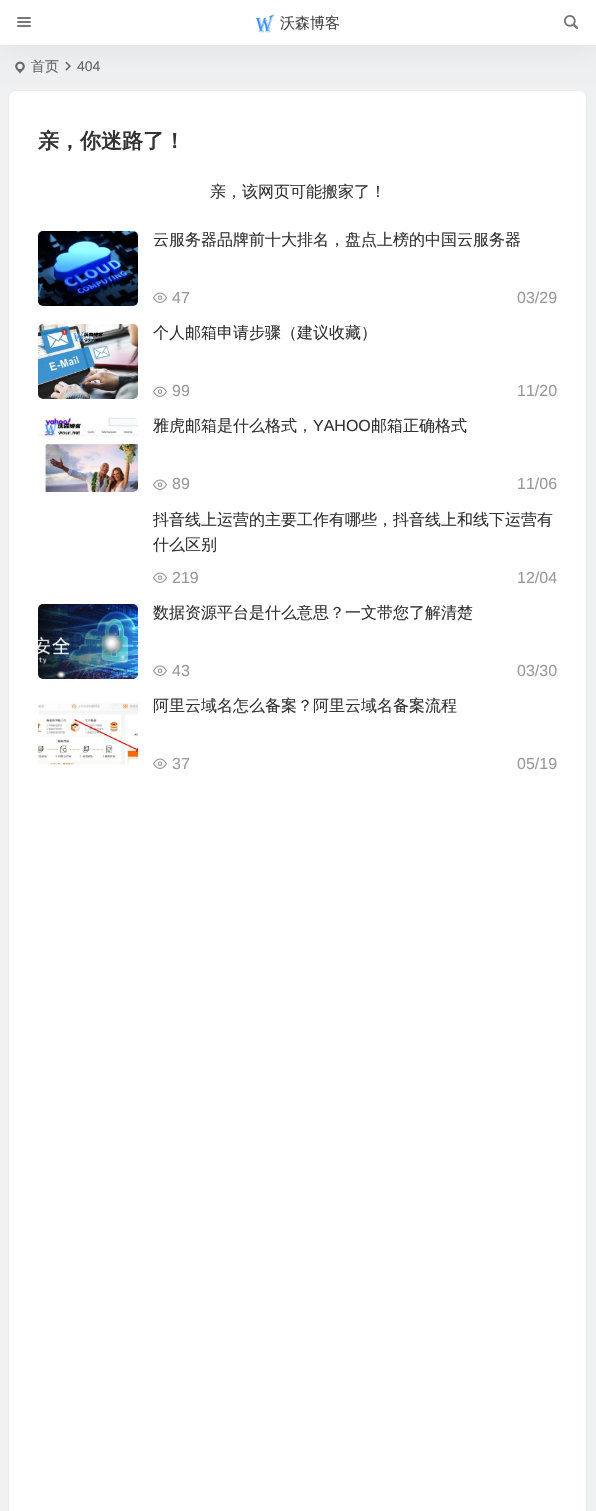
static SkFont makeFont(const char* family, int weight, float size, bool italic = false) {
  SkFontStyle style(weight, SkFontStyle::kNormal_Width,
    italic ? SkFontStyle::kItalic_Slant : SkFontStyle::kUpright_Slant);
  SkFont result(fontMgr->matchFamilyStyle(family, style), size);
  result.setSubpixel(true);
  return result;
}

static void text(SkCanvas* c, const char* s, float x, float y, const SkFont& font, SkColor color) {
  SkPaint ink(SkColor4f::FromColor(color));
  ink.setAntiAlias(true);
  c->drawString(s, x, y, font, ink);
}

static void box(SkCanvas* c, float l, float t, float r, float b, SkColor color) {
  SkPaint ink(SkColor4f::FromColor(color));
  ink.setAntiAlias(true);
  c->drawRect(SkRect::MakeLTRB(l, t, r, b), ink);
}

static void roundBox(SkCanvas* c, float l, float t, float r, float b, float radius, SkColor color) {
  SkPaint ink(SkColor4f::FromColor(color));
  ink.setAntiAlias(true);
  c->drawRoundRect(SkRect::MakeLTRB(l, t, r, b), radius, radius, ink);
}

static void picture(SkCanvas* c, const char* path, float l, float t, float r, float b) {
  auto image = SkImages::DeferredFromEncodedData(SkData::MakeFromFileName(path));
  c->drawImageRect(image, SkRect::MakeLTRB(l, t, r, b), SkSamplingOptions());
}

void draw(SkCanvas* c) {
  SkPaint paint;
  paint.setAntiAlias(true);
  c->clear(0xffeff0f2);
  picture(c, "img_03.png", 15, 61, 25, 74);
  picture(c, "img_04.png", 65, 61, 71, 71);
  roundBox(c, 8, 90, 587, 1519, 8, 0xffffffff);
  paint.setStyle(SkPaint::kStroke_Style);
  paint.setStrokeWidth(1);
  paint.setColor(0x12000000);
  c->drawRoundRect(SkRect::MakeLTRB(8.5f, 90.5f, 586.5f, 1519.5f), 7.5f, 7.5f, paint);
  paint.setStyle(SkPaint::kFill_Style);
  paint.setColor(0x0f000000);
  paint.setMaskFilter(SkMaskFilter::MakeBlur(kNormal_SkBlurStyle, 15));
  c->drawRect(SkRect::MakeLTRB(0, 3, 596, 48), paint);
  paint.setMaskFilter(nullptr);
  box(c, 0, 0, 596, 45, 0xffffffff);
  roundBox(c, 17, 21, 31, 23, 1, 0xff777777);
  roundBox(c, 17, 17, 31, 19, 1, 0xff777777);
  roundBox(c, 17, 25, 31, 27, 1, 0xff777777);
  picture(c, "img_01.png", 255, 14, 275, 33);
  SkFont face1 = makeFont("WenQuanYi Zen Hei", 500, 15);
  text(c, "沃森博客", 280, 28, face1, 0xff444444);
  picture(c, "img_02.png", 564, 15, 578, 29);
  SkFont face2 = makeFont("WenQuanYi Zen Hei", 500, 14);
  text(c, "首页", 31, 71, face2, 0xff666666);
  SkFont face3 = makeFont("Liberation Sans", 400, 14);
  text(c, "404", 77, 71, face3, 0xff666666);
  SkFont face4 = makeFont("WenQuanYi Zen Hei", 700, 21);
  text(c, "亲，你迷路了！", 38, 148, face4, 0xff333333);
  SkFont face5 = makeFont("WenQuanYi Zen Hei", 500, 16);
  text(c, "亲，该网页可能搬家了！", 210, 197, face5, 0xff333333);
  picture(c, "img_05.png", 38, 231, 138, 306);
  text(c, "云服务器品牌前十大排名，盘点上榜的中国云服务器", 153, 245, face5, 0xff333333);
  picture(c, "img_06.png", 153, 292, 167, 303);
  SkFont face6 = makeFont("Liberation Sans", 400, 16);
  text(c, "47", 172, 303, face6, 0xff999999);
  text(c, "03/29", 517, 303, face6, 0xff999999);
  picture(c, "img_07.png", 38, 324, 138, 399);
  text(c, "个人邮箱申请步骤（建议收藏）", 153, 338, face5, 0xff333333);
  picture(c, "img_06.png", 153, 386, 167, 397);
  text(c, "99", 172, 396, face6, 0xff999999);
  text(c, "11/20", 517, 396, face6, 0xff999999);
  picture(c, "img_08.png", 38, 417, 138, 492);
  text(c, "雅虎邮箱是什么格式，", 153, 431, face5, 0xff333333);
  text(c, "YAHOO", 313, 431, face6, 0xff333333);
  text(c, "邮箱正确格式", 371, 431, face5, 0xff333333);
  picture(c, "img_06.png", 153, 479, 167, 490);
  text(c, "89", 172, 489, face6, 0xff999999);
  text(c, "11/06", 517, 489, face6, 0xff999999);
  text(c, "抖音线上运营的主要工作有哪些，抖音线上和线下运营有", 153, 525, face5, 0xff333333);
  text(c, "什么区别", 153, 550, face5, 0xff333333);
  picture(c, "img_06.png", 153, 572, 167, 583);
  text(c, "219", 172, 583, face6, 0xff999999);
  text(c, "12/04", 517, 583, face6, 0xff999999);
  picture(c, "img_09.png", 38, 604, 138, 679);
  text(c, "数据资源平台是什么意思？一文带您了解清楚", 153, 618, face5, 0xff333333);
  picture(c, "img_06.png", 153, 665, 167, 676);
  text(c, "43", 172, 676, face6, 0xff999999);
  text(c, "03/30", 517, 676, face6, 0xff999999);
  picture(c, "img_10.png", 38, 703, 138, 765);
  text(c, "阿里云域名怎么备案？阿里云域名备案流程", 153, 711, face5, 0xff333333);
  picture(c, "img_06.png", 153, 758, 167, 769);
  text(c, "37", 172, 769, face6, 0xff999999);
  text(c, "05/19", 517, 769, face6, 0xff999999);
}
